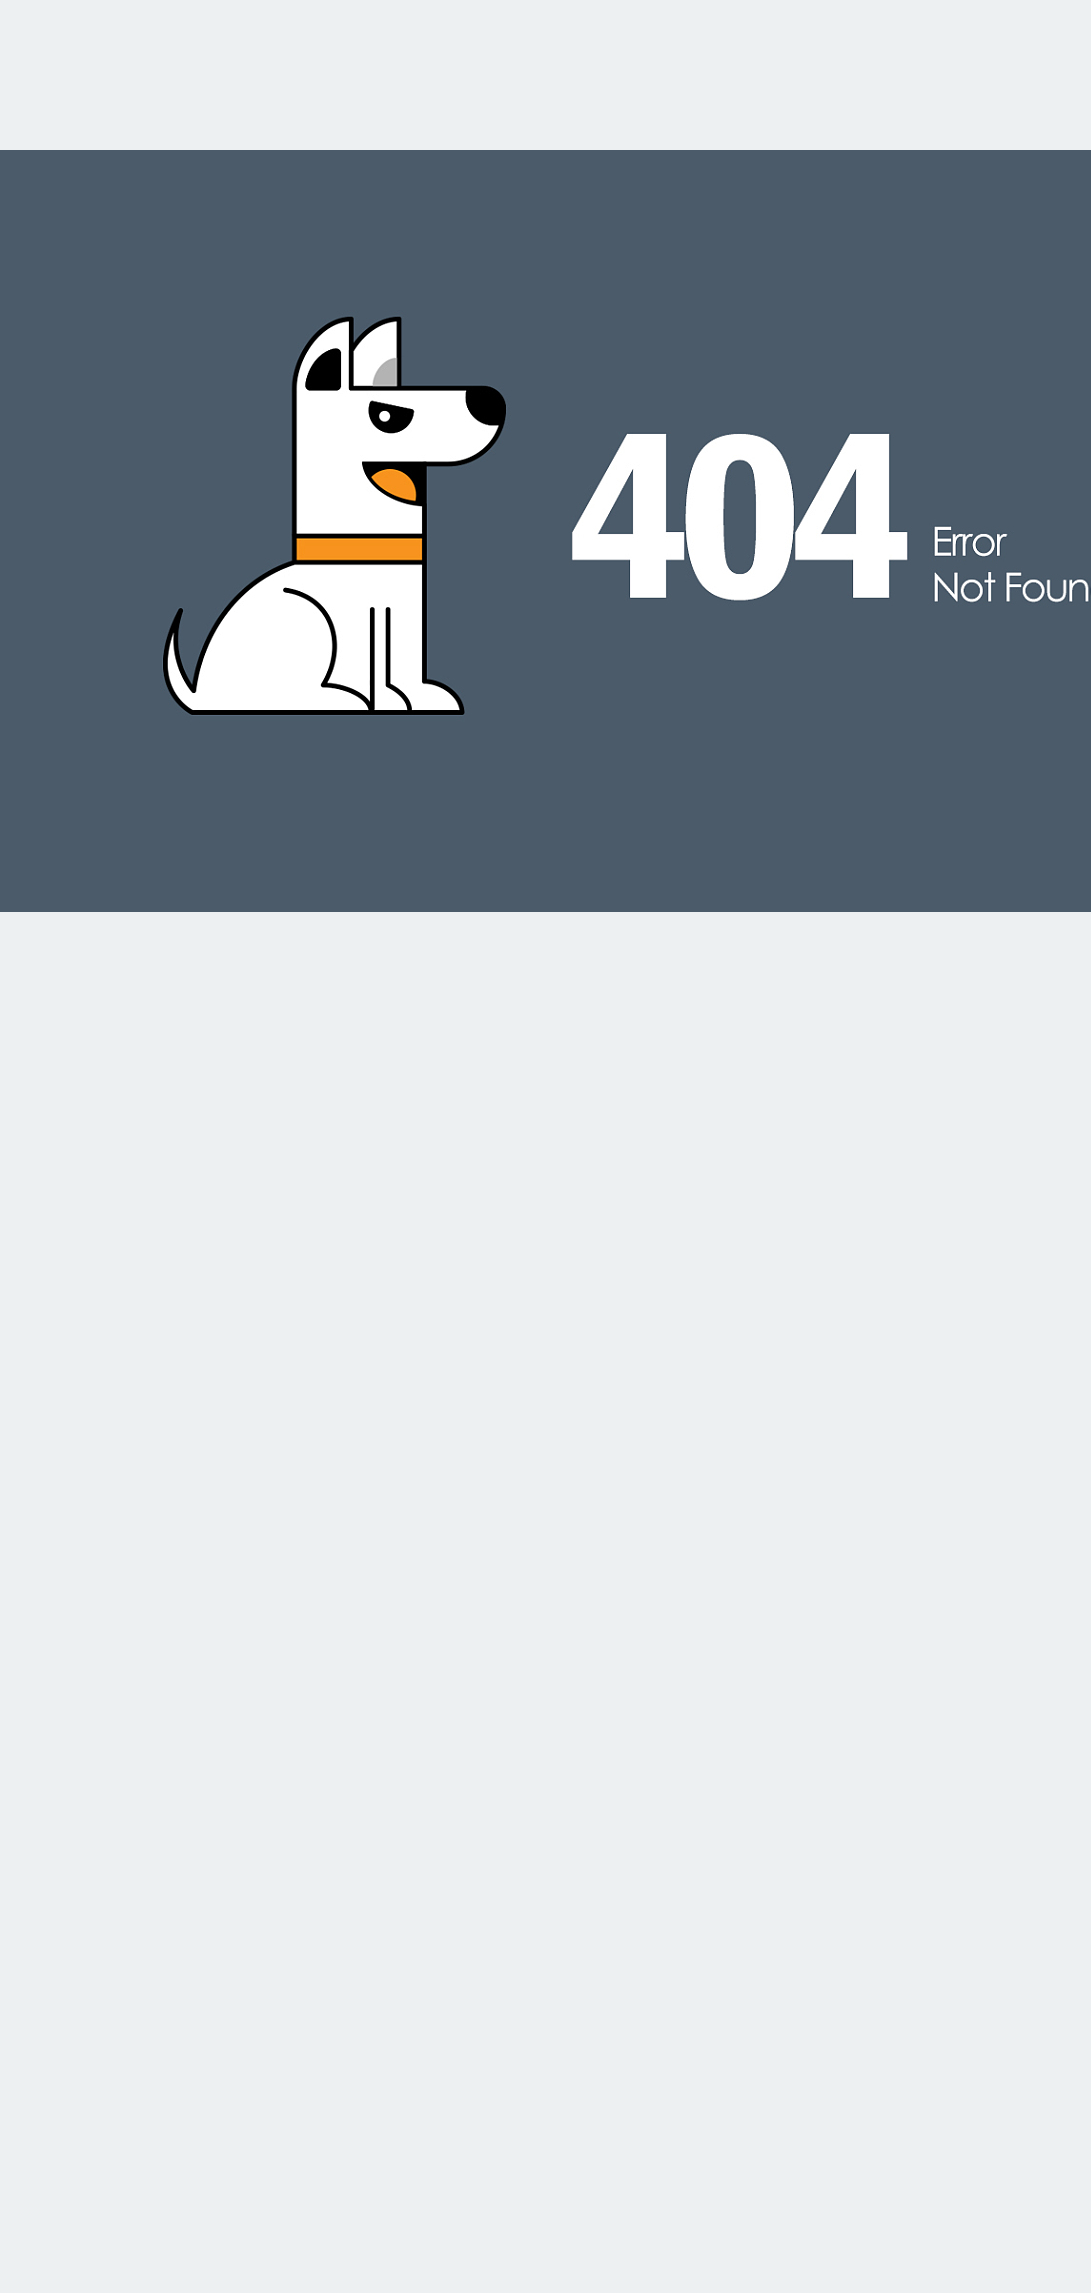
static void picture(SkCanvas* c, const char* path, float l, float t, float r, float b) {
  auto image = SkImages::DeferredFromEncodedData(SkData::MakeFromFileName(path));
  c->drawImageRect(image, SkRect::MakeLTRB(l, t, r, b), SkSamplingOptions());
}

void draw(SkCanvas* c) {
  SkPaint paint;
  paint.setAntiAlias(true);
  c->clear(0xffedf0f2);
  picture(c, "img_01.png", 0, 150, 1091, 912);
}
